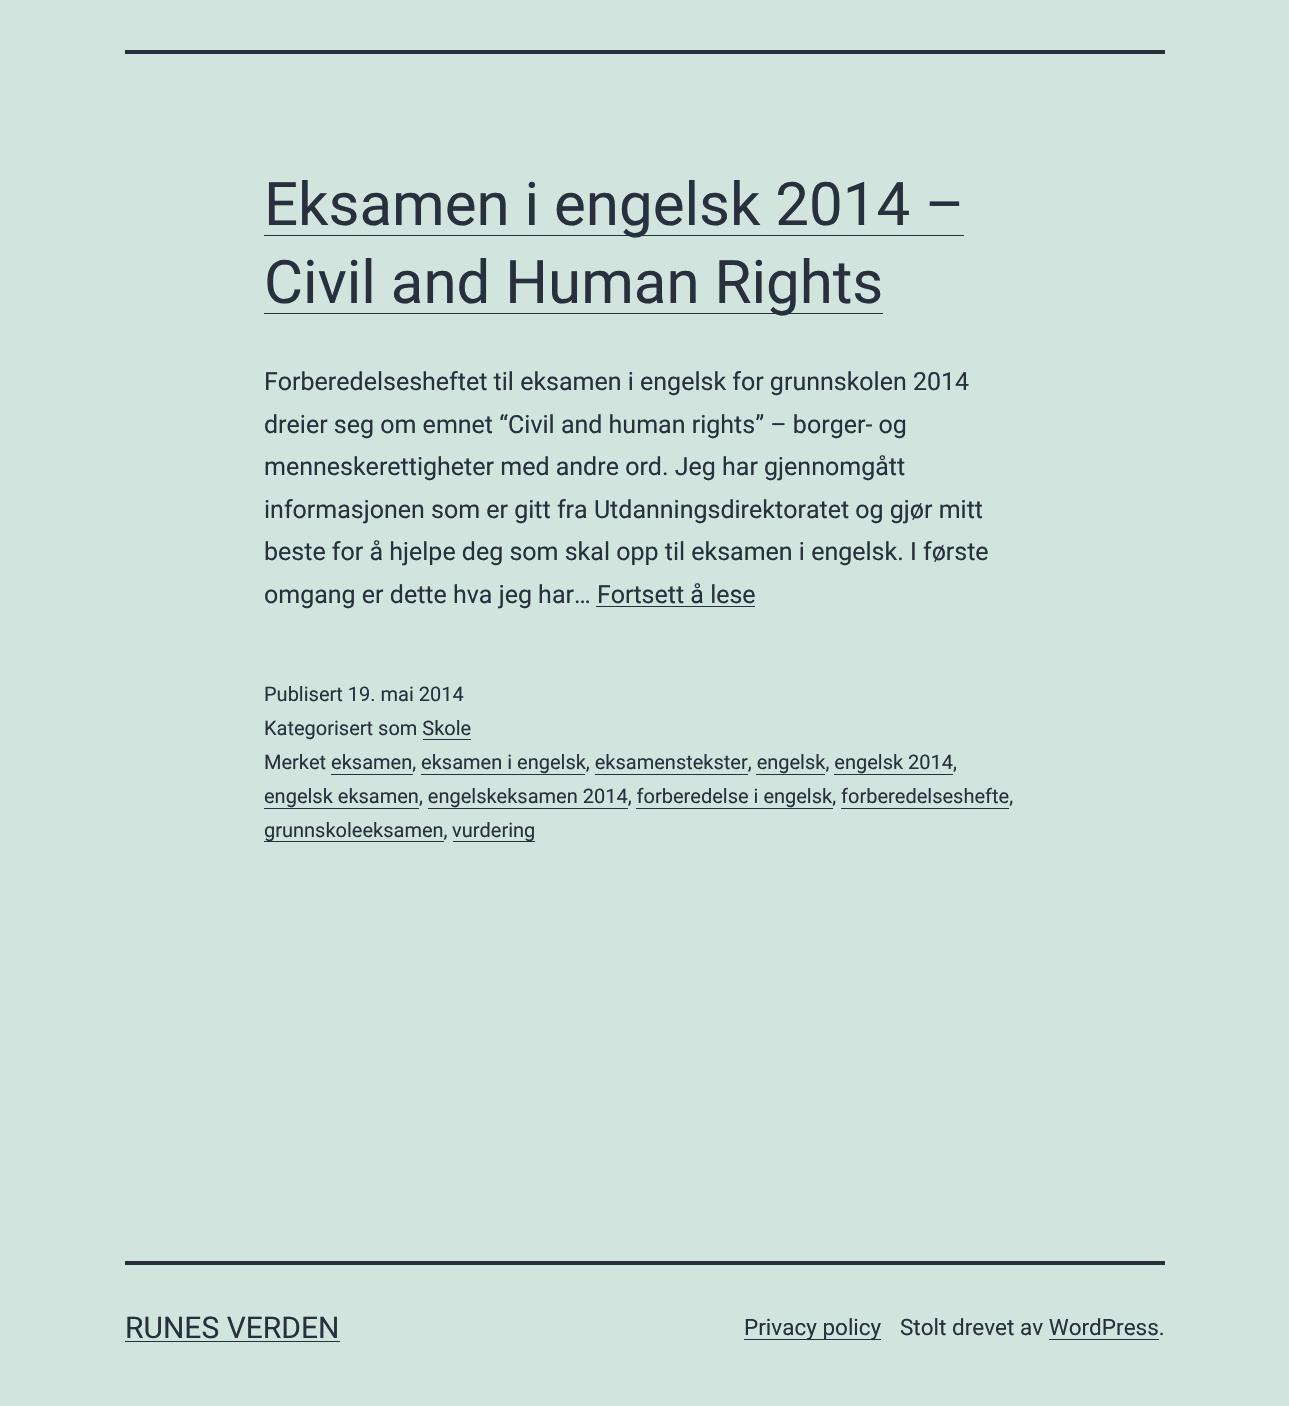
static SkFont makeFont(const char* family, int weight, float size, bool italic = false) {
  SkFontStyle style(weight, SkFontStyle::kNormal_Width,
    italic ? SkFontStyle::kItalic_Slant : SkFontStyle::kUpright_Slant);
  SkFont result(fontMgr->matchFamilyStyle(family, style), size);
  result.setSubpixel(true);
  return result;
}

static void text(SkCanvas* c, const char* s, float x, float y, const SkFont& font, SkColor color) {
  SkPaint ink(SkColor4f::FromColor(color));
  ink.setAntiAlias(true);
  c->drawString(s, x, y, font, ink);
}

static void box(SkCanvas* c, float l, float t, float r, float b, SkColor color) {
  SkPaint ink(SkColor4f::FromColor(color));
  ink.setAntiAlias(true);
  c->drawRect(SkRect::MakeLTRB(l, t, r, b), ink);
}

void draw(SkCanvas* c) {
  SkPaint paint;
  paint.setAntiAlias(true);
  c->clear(0xffd1e4dd);
  box(c, 125, 50, 1165, 54, 0xff28303d);
  box(c, 264, 235, 964, 236, 0xff28303d);
  SkFont face1 = makeFont("Roboto", 400, 60);
  text(c, "Eksamen i engelsk 2014 –", 264, 225, face1, 0xff28303d);
  box(c, 264, 313, 883, 314, 0xff28303d);
  text(c, "Civil and Human Rights", 264, 303, face1, 0xff28303d);
  SkFont face2 = makeFont("Roboto", 400, 25);
  text(c, "Forberedelsesheftet til eksamen i engelsk for grunnskolen 2014", 264, 390, face2, 0xff28303d);
  text(c, "dreier seg om emnet “Civil and human rights” – borger- og", 264, 433, face2, 0xff28303d);
  text(c, "menneskerettigheter med andre ord. Jeg har gjennomgått", 264, 475, face2, 0xff28303d);
  text(c, "informasjonen som er gitt fra Utdanningsdirektoratet og gjør mitt", 264, 518, face2, 0xff28303d);
  text(c, "beste for å hjelpe deg som skal opp til eksamen i engelsk. I første", 264, 560, face2, 0xff28303d);
  text(c, "omgang er dette hva jeg har… Fortsett å lese", 264, 603, face2, 0xff28303d);
  box(c, 596, 606, 755, 607, 0xff28303d);
  SkFont face3 = makeFont("Roboto", 400, 20);
  text(c, "Publisert 19. mai 2014", 264, 701, face3, 0xff28303d);
  text(c, "Kategorisert som Skole", 264, 735, face3, 0xff28303d);
  box(c, 423, 739, 471, 740, 0xff28303d);
  text(c, "Merket eksamen, eksamen i engelsk, eksamenstekster, engelsk, engelsk 2014,", 264, 769, face3, 0xff28303d);
  box(c, 331, 774, 413, 775, 0xff28303d);
  box(c, 421, 774, 585, 775, 0xff28303d);
  box(c, 595, 774, 748, 775, 0xff28303d);
  box(c, 756, 774, 825, 775, 0xff28303d);
  box(c, 834, 774, 953, 775, 0xff28303d);
  text(c, "engelsk eksamen, engelskeksamen 2014, forberedelse i engelsk, forberedelseshefte,", 264, 803, face3, 0xff28303d);
  box(c, 264, 808, 419, 809, 0xff28303d);
  box(c, 428, 808, 628, 809, 0xff28303d);
  box(c, 636, 808, 833, 809, 0xff28303d);
  box(c, 841, 808, 1009, 809, 0xff28303d);
  box(c, 264, 841, 444, 842, 0xff28303d);
  text(c, "grunnskoleeksamen,", 264, 837, face3, 0xff28303d);
  box(c, 453, 841, 535, 842, 0xff28303d);
  text(c, "vurdering", 452, 837, face3, 0xff28303d);
  box(c, 125, 1261, 1165, 1265, 0xff28303d);
  SkFont face4 = makeFont("Roboto", 400, 30);
  text(c, "RUNES VERDEN", 125, 1338, face4, 0xff28303d);
  box(c, 125, 1341, 340, 1342, 0xff28303d);
  box(c, 744, 1339, 881, 1340, 0xff28303d);
  SkFont face5 = makeFont("Roboto", 400, 22.5f);
  text(c, "Privacy policy", 744, 1335, face5, 0xff28303d);
  text(c, "Stolt drevet av WordPress.", 900, 1335, face5, 0xff28303d);
  box(c, 1049, 1339, 1159, 1340, 0xff28303d);
}
